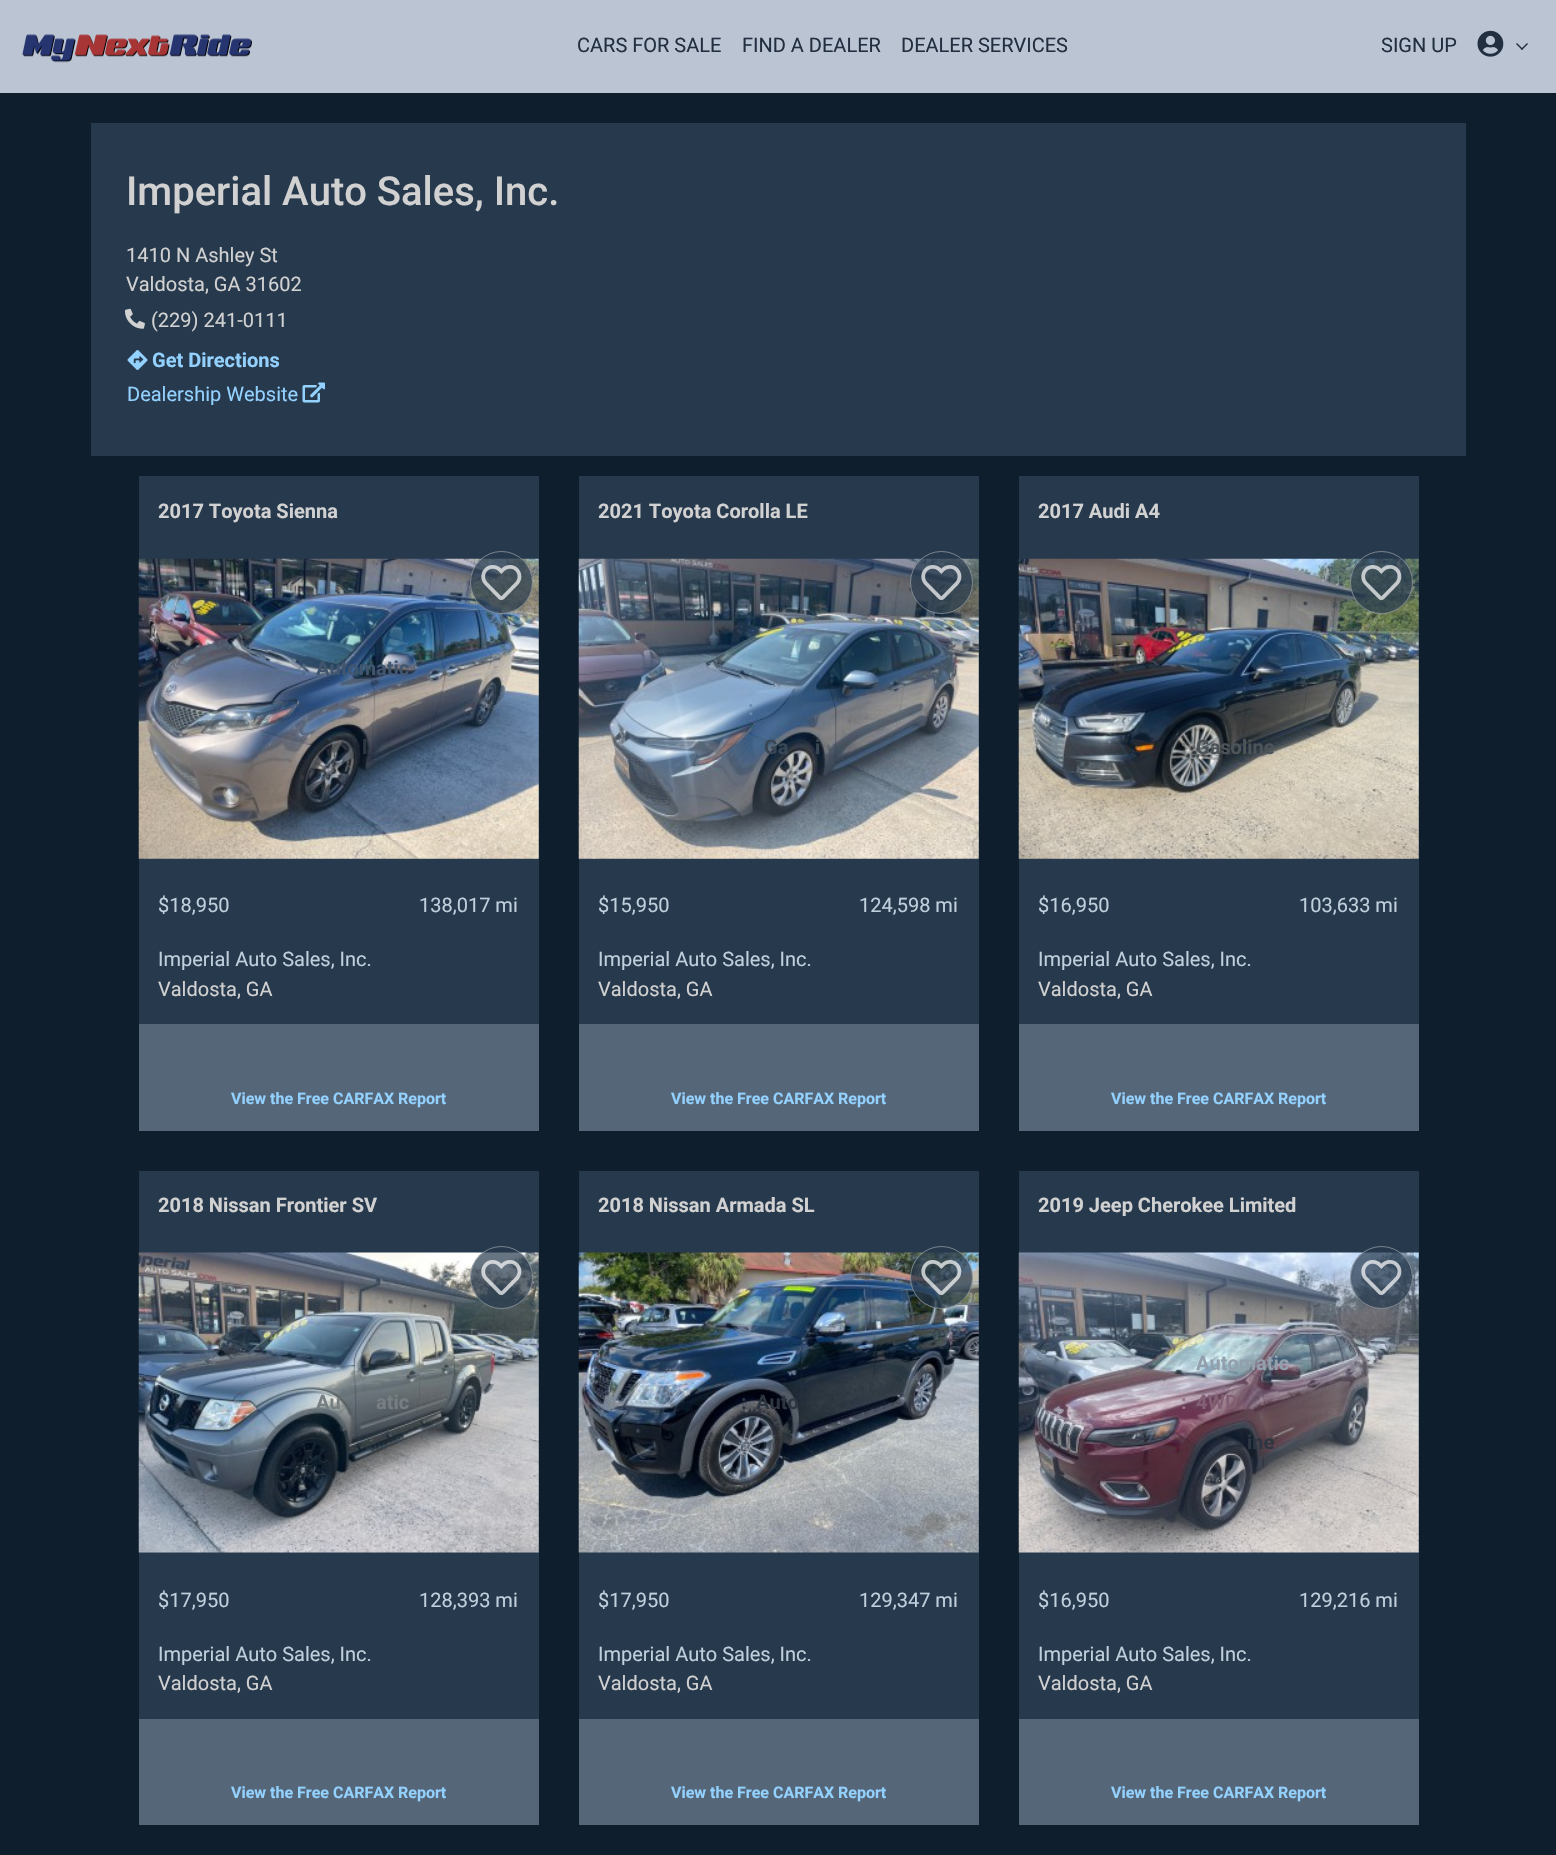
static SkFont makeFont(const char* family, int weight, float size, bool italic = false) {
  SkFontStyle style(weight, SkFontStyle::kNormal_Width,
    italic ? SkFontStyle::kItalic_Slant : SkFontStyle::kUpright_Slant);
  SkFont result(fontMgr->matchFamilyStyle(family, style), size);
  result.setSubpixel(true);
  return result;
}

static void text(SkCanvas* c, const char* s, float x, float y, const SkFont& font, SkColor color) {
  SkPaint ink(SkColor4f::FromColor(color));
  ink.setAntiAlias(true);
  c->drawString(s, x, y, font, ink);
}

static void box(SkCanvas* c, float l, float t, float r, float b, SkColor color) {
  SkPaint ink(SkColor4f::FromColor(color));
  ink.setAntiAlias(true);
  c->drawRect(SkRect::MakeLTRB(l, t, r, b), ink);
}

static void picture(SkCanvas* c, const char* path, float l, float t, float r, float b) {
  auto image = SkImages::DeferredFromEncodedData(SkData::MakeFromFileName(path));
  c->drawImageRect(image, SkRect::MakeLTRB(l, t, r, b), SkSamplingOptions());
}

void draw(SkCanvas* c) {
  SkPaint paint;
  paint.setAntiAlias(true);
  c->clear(0xff0e1e2d);
  box(c, 0, 0, 1556, 93, 0xffbbc4d3);
  picture(c, "img_01.png", 22, 34, 252, 63);
  SkFont face1 = makeFont("Roboto", 400, 20);
  text(c, "CARS FOR SALE", 577, 52, face1, 0xff222f40);
  text(c, "FIND A DEALER", 742, 52, face1, 0xff222f40);
  text(c, "DEALER SERVICES", 901, 52, face1, 0xff222f40);
  text(c, "SIGN UP", 1381, 52, face1, 0xff222f40);
  picture(c, "img_02.png", 1477, 30, 1504, 57);
  paint.setColor(0xff222f40);
  c->drawPath(SkPathBuilder().moveTo(1527, 43).lineTo(1528, 44).lineTo(1522, 50).lineTo(1521, 49).close().detach(), paint);
  c->drawPath(SkPathBuilder().moveTo(1517, 43).lineTo(1523, 49).lineTo(1522, 50).lineTo(1516, 44).close().detach(), paint);
  box(c, 91, 123, 1466, 456, 0xff27394d);
  SkFont face2 = makeFont("Roboto", 500, 40);
  text(c, "Imperial Auto Sales, Inc.", 126, 205, face2, 0xffd1d1d1);
  text(c, "1410 N Ashley St", 126, 262, face1, 0xffd1d1d1);
  text(c, "Valdosta, GA 31602", 126, 291, face1, 0xffd1d1d1);
  picture(c, "img_03.png", 125, 308, 145, 329);
  text(c, "(229) 241-0111", 151, 327, face1, 0xffd1d1d1);
  picture(c, "img_04.png", 127, 350, 148, 370);
  SkFont face3 = makeFont("Roboto", 700, 20);
  text(c, "Get Directions", 152, 367, face3, 0xff93d1ff);
  text(c, "Dealership Website", 127, 401, face1, 0xff93d1ff);
  picture(c, "img_05.png", 302, 382, 325, 403);
  box(c, 139, 476, 539, 1024, 0xff27394d);
  text(c, "2017 Toyota Sienna", 158, 518, face3, 0xffd1d1d1);
  picture(c, "img_06.png", 138, 558, 539, 859);
  text(c, ":", 301, 675, face3, 0xff4e6784);
  text(c, "Automatic", 316, 675, face3, 0xff41566e);
  text(c, "l", 362, 754, face3, 0xff2c3540);
  text(c, "$18,950", 158, 912, face1, 0xffc0cfdc);
  text(c, "138,017 mi", 419, 912, face1, 0xffc0cfdc);
  text(c, "Imperial Auto Sales, Inc.", 158, 966, face1, 0xffc0cfdc);
  text(c, "Valdosta, GA", 158, 996, face1, 0xffd1d1d1);
  box(c, 139, 1024, 539, 1131, 0xff556678);
  SkFont face4 = makeFont("Roboto", 700, 16);
  text(c, "View the Free CARFAX Report", 231, 1104, face4, 0xff93d1ff);
  paint.setColor(0xb327394d);
  c->drawCircle(501.5f, 582.5f, 31.5f, paint);
  paint.setStyle(SkPaint::kStroke_Style);
  paint.setStrokeWidth(1);
  paint.setColor(0x7dd1d1d1);
  c->drawCircle(501.5f, 582.5f, 31, paint);
  picture(c, "img_07.png", 481, 565, 522, 600);
  box(c, 579, 476, 979, 1024, 0xff27394d);
  text(c, "2021 Toyota Corolla LE", 598, 518, face3, 0xffd1d1d1);
  picture(c, "img_08.png", 578, 558, 979, 859);
  text(c, ":", 748, 675, face3, 0xff7192ac);
  text(c, ":", 748, 715, face3, 0xff698cb3);
  text(c, "Ga", 764, 754, face3, 0xff394654);
  text(c, "i", 815, 754, face3, 0xff394654);
  text(c, "$15,950", 598, 912, face1, 0xffc0cfdc);
  text(c, "124,598 mi", 859, 912, face1, 0xffc0cfdc);
  text(c, "Imperial Auto Sales, Inc.", 598, 966, face1, 0xffc0cfdc);
  text(c, "Valdosta, GA", 598, 996, face1, 0xffd1d1d1);
  box(c, 579, 1024, 979, 1131, 0xff556678);
  text(c, "View the Free CARFAX Report", 671, 1104, face4, 0xff93d1ff);
  paint.setStyle(SkPaint::kFill_Style);
  paint.setColor(0xb327394d);
  c->drawCircle(941.5f, 582.5f, 31.5f, paint);
  paint.setStyle(SkPaint::kStroke_Style);
  paint.setColor(0x7dd1d1d1);
  c->drawCircle(941.5f, 582.5f, 31, paint);
  picture(c, "img_09.png", 921, 565, 962, 600);
  box(c, 1019, 476, 1419, 1024, 0xff27394d);
  text(c, "2017 Audi A4", 1038, 518, face3, 0xffd1d1d1);
  picture(c, "img_10.png", 1018, 558, 1419, 859);
  text(c, ":", 1181, 754, face3, 0xff737777);
  text(c, "Gasoline", 1196, 754, face3, 0xff4d5459);
  text(c, "$16,950", 1038, 912, face1, 0xffc0cfdc);
  text(c, "103,633 mi", 1299, 912, face1, 0xffc0cfdc);
  text(c, "Imperial Auto Sales, Inc.", 1038, 966, face1, 0xffc0cfdc);
  text(c, "Valdosta, GA", 1038, 996, face1, 0xffd1d1d1);
  box(c, 1019, 1024, 1419, 1131, 0xff556678);
  text(c, "View the Free CARFAX Report", 1111, 1104, face4, 0xff93d1ff);
  paint.setStyle(SkPaint::kFill_Style);
  paint.setColor(0xb327394d);
  c->drawCircle(1381.5f, 582.5f, 31.5f, paint);
  paint.setStyle(SkPaint::kStroke_Style);
  paint.setColor(0x7dd1d1d1);
  c->drawCircle(1381.5f, 582.5f, 31, paint);
  picture(c, "img_11.png", 1361, 565, 1402, 600);
  box(c, 139, 1171, 539, 1719, 0xff27394d);
  text(c, "2018 Nissan Frontier SV", 158, 1212, face3, 0xffd1d1d1);
  picture(c, "img_12.png", 138, 1252, 539, 1553);
  text(c, "Au", 316, 1409, face3, 0xff777f83);
  text(c, "atic", 376, 1409, face3, 0xff777f83);
  text(c, "$17,950", 158, 1607, face1, 0xffc0cfdc);
  text(c, "128,393 mi", 419, 1607, face1, 0xffc0cfdc);
  text(c, "Imperial Auto Sales, Inc.", 158, 1661, face1, 0xffc0cfdc);
  text(c, "Valdosta, GA", 158, 1690, face1, 0xffd1d1d1);
  box(c, 139, 1719, 539, 1825, 0xff556678);
  text(c, "View the Free CARFAX Report", 231, 1798, face4, 0xff93d1ff);
  paint.setStyle(SkPaint::kFill_Style);
  paint.setColor(0xb327394d);
  c->drawCircle(501.5f, 1277.5f, 31.5f, paint);
  paint.setStyle(SkPaint::kStroke_Style);
  paint.setColor(0x7dd1d1d1);
  c->drawCircle(501.5f, 1277.5f, 31, paint);
  picture(c, "img_13.png", 481, 1260, 522, 1295);
  box(c, 579, 1171, 979, 1719, 0xff27394d);
  text(c, "2018 Nissan Armada SL", 598, 1212, face3, 0xffd1d1d1);
  picture(c, "img_14.png", 578, 1252, 979, 1553);
  text(c, ":", 741, 1409, face3, 0xff2c3540);
  text(c, "Auto", 756, 1409, face3, 0xff2c3540);
  text(c, "$17,950", 598, 1607, face1, 0xffc0cfdc);
  text(c, "129,347 mi", 859, 1607, face1, 0xffc0cfdc);
  text(c, "Imperial Auto Sales, Inc.", 598, 1661, face1, 0xffc0cfdc);
  text(c, "Valdosta, GA", 598, 1690, face1, 0xffd1d1d1);
  box(c, 579, 1719, 979, 1825, 0xff556678);
  text(c, "View the Free CARFAX Report", 671, 1798, face4, 0xff93d1ff);
  paint.setStyle(SkPaint::kFill_Style);
  paint.setColor(0xb327394d);
  c->drawCircle(941.5f, 1277.5f, 31.5f, paint);
  paint.setStyle(SkPaint::kStroke_Style);
  paint.setColor(0x7dd1d1d1);
  c->drawCircle(941.5f, 1277.5f, 31, paint);
  picture(c, "img_15.png", 921, 1260, 962, 1295);
  box(c, 1019, 1171, 1419, 1719, 0xff27394d);
  text(c, "2019 Jeep Cherokee Limited", 1038, 1212, face3, 0xffd1d1d1);
  picture(c, "img_16.png", 1018, 1252, 1419, 1553);
  text(c, "Automatic", 1196, 1370, face3, 0xff92a0ad);
  text(c, ":", 1181, 1409, face3, 0xff957186);
  text(c, "4WD", 1196, 1409, face3, 0xff836074);
  text(c, "ine", 1247, 1449, face3, 0xff2c3540);
  text(c, "$16,950", 1038, 1607, face1, 0xffc0cfdc);
  text(c, "129,216 mi", 1299, 1607, face1, 0xffc0cfdc);
  text(c, "Imperial Auto Sales, Inc.", 1038, 1661, face1, 0xffc0cfdc);
  text(c, "Valdosta, GA", 1038, 1690, face1, 0xffd1d1d1);
  box(c, 1019, 1719, 1419, 1825, 0xff556678);
  text(c, "View the Free CARFAX Report", 1111, 1798, face4, 0xff93d1ff);
  paint.setStyle(SkPaint::kFill_Style);
  paint.setColor(0xb327394d);
  c->drawCircle(1381.5f, 1277.5f, 31.5f, paint);
  paint.setStyle(SkPaint::kStroke_Style);
  paint.setColor(0x7dd1d1d1);
  c->drawCircle(1381.5f, 1277.5f, 31, paint);
  picture(c, "img_17.png", 1361, 1260, 1402, 1295);
}
